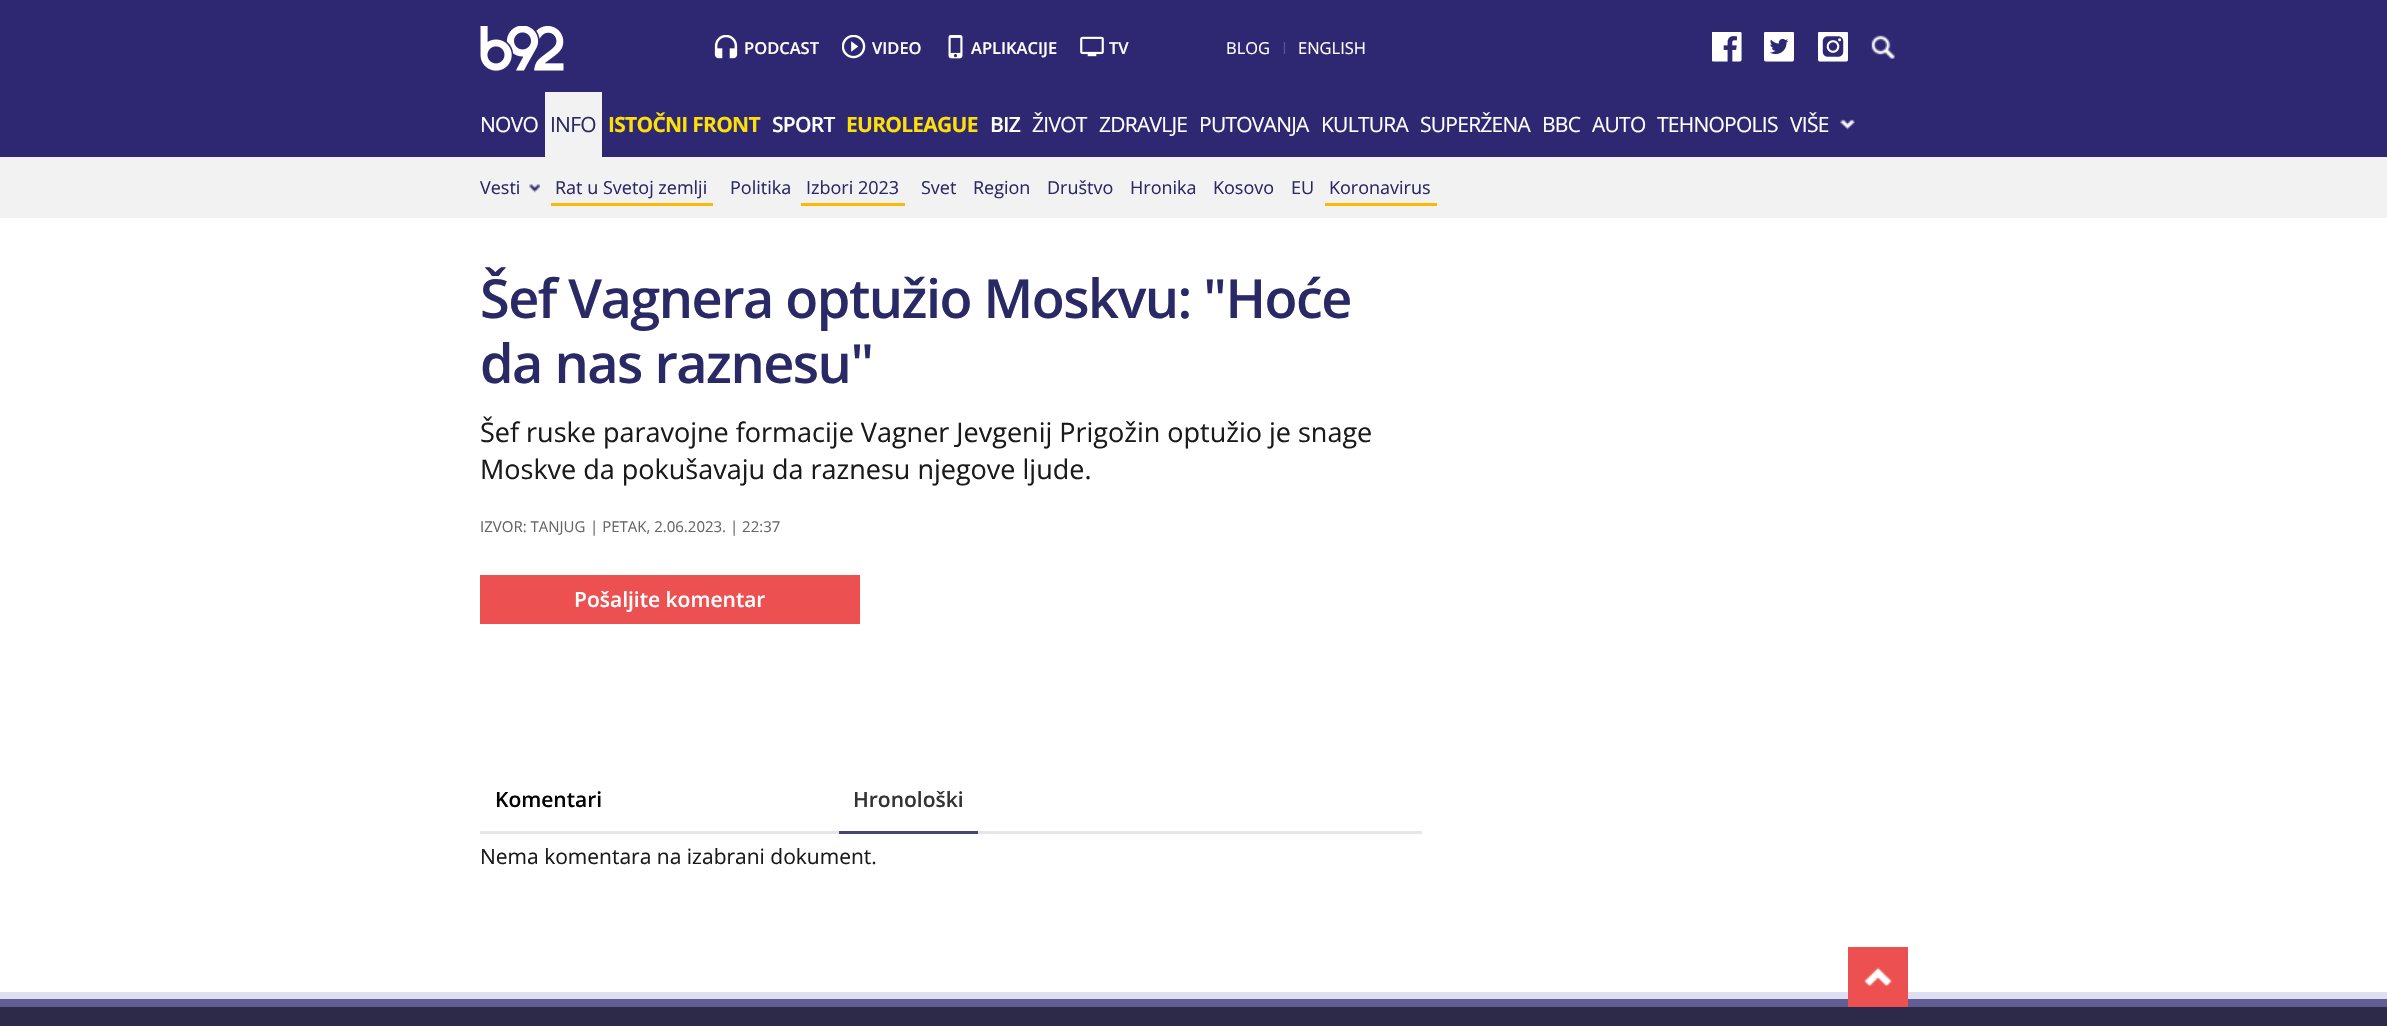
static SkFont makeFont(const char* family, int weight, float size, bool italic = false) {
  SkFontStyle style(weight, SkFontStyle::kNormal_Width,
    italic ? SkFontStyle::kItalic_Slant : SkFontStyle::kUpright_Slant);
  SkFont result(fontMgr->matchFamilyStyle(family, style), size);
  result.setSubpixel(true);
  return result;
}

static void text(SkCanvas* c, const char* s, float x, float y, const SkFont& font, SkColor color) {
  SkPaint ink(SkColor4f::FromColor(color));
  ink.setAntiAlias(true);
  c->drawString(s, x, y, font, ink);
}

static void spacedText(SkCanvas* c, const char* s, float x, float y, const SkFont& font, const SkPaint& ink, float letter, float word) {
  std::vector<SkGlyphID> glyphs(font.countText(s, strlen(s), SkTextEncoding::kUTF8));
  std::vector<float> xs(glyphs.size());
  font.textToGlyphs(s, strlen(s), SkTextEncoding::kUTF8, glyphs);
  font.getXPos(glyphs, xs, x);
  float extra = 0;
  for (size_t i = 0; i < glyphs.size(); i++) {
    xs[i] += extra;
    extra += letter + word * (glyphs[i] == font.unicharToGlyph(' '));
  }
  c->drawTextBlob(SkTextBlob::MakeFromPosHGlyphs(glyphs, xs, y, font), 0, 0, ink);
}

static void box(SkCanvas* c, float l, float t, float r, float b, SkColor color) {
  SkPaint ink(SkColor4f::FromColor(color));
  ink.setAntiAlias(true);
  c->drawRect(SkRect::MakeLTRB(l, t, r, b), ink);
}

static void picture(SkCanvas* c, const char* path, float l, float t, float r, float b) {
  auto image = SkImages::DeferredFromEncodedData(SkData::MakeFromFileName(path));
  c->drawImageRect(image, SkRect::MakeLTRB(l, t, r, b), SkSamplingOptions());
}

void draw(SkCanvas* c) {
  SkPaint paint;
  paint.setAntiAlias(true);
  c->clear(0xffffffff);
  box(c, 0, 0, 2387, 157, 0xff2e2873);
  box(c, 0, 157, 2387, 218, 0xfff2f2f2);
  picture(c, "img_01.png", 480, 26, 564, 71);
  picture(c, "img_02.png", 714, 35, 738, 59);
  SkFont face1 = makeFont("Open Sans", 600, 16.5f);
  text(c, "PODCAST", 744, 54, face1, 0xffffffff);
  picture(c, "img_03.png", 842, 35, 866, 59);
  text(c, "VIDEO", 872, 54, face1, 0xffffffff);
  picture(c, "img_04.png", 948, 35, 963, 59);
  text(c, "APLIKACIJE", 971, 54, face1, 0xffffffff);
  picture(c, "img_05.png", 1080, 36, 1104, 57);
  text(c, "TV", 1109, 54, face1, 0xffffffff);
  SkFont face2 = makeFont("Open Sans", 400, 16.5f);
  text(c, "BLOG", 1226, 54, face2, 0xffffffff);
  SkFont face3 = makeFont("Open Sans", 400, 12);
  text(c, "|", 1281, 51, face3, 0xff68639e);
  text(c, "ENGLISH", 1298, 54, face2, 0xffffffff);
  picture(c, "img_06.png", 1712, 32, 1742, 62);
  picture(c, "img_07.png", 1764, 32, 1794, 62);
  picture(c, "img_08.png", 1818, 32, 1848, 62);
  picture(c, "img_09.png", 1871, 35, 1895, 59);
  SkFont face4 = makeFont("Open Sans", 700, 21);
  paint.setColor(0xfffedf08);
  spacedText(c, "ISTOČNI FRONT", 608, 132, face4, paint, -0.75f, 0);
  SkFont face5 = makeFont("Open Sans", 400, 21);
  paint.setColor(0xffffffff);
  spacedText(c, "ŽIVOT", 1032, 132, face5, paint, -0.75f, 0);
  spacedText(c, "SUPERŽENA", 1420, 132, face5, paint, -0.75f, 0);
  picture(c, "img_10.png", 1840, 119, 1855, 130);
  spacedText(c, "VIŠE", 1790, 132, face5, paint, -0.75f, 0);
  box(c, 545, 92, 602, 157, 0xfff2f2f2);
  paint.setColor(0xff2a2966);
  spacedText(c, "INFO", 550, 132, face5, paint, -0.75f, 0);
  SkFont face6 = makeFont("Open Sans", 400, 18);
  text(c, "Vesti", 480, 194, face6, 0xff2a2966);
  picture(c, "img_11.png", 529, 184, 540, 193);
  text(c, "Rat u Svetoj zemlji", 555, 194, face6, 0xff2a2966);
  box(c, 551, 203, 713, 206, 0xffffb800);
  text(c, "Politika", 730, 194, face6, 0xff2a2966);
  text(c, "Izbori 2023", 806, 194, face6, 0xff2a2966);
  box(c, 801, 203, 905, 206, 0xffffb800);
  text(c, "Svet", 921, 194, face6, 0xff2a2966);
  text(c, "Region", 973, 194, face6, 0xff2a2966);
  text(c, "Društvo", 1047, 194, face6, 0xff2a2966);
  text(c, "Hronika", 1130, 194, face6, 0xff2a2966);
  text(c, "Kosovo", 1213, 194, face6, 0xff2a2966);
  text(c, "EU", 1291, 194, face6, 0xff2a2966);
  text(c, "Koronavirus", 1329, 194, face6, 0xff2a2966);
  box(c, 1325, 203, 1437, 206, 0xffffb800);
  paint.setColor(0xffffffff);
  spacedText(c, "NOVO", 480, 132, face5, paint, -0.75f, 0);
  SkFont face7 = makeFont("Open Sans", 600, 21);
  spacedText(c, "SPORT", 772, 132, face7, paint, -0.75f, 0);
  paint.setColor(0xfffedf08);
  spacedText(c, "EUROLEAGUE", 846, 132, face4, paint, -0.75f, 0);
  paint.setColor(0xffffffff);
  spacedText(c, "BIZ", 990, 132, face7, paint, -0.75f, 0);
  spacedText(c, "ZDRAVLJE", 1099, 132, face5, paint, -0.75f, 0);
  spacedText(c, "PUTOVANJA", 1199, 132, face5, paint, -0.75f, 0);
  spacedText(c, "KULTURA", 1321, 132, face5, paint, -0.75f, 0);
  spacedText(c, "BBC", 1542, 132, face5, paint, -0.75f, 0);
  spacedText(c, "AUTO", 1592, 132, face5, paint, -0.75f, 0);
  spacedText(c, "TEHNOPOLIS", 1657, 132, face5, paint, -0.75f, 0);
  SkFont face8 = makeFont("Open Sans", 600, 54);
  paint.setColor(0xff2a2966);
  spacedText(c, "Šef Vagnera optužio Moskvu: \"Hoće", 480, 318, face8, paint, -1.5f, 0);
  spacedText(c, "da nas raznesu\"", 480, 383, face8, paint, -1.5f, 0);
  SkFont face9 = makeFont("Open Sans", 400, 27);
  text(c, "Šef ruske paravojne formacije Vagner Jevgenij Prigožin optužio je snage", 480, 442, face9, 0xff1a1a1a);
  text(c, "Moskve da pokušavaju da raznesu njegove ljude.", 480, 479, face9, 0xff1a1a1a);
  SkFont face10 = makeFont("Open Sans", 400, 15);
  text(c, "IZVOR: TANJUG", 480, 532, face10, 0xff666666);
  text(c, "| PETAK, 2.06.2023. | 22:37", 590, 532, face10, 0xff666666);
  box(c, 480, 575, 860, 624, 0xffec5050);
  text(c, "Pošaljite komentar", 574, 607, face7, 0xffffffff);
  box(c, 480, 831, 1422, 834, 0xffe6e6e6);
  text(c, "Komentari", 495, 807, face7, 0xff000000);
  box(c, 839, 831, 978, 834, 0xff474777);
  text(c, "Hronološki", 853, 807, face7, 0xff333333);
  text(c, "Nema komentara na izabrani dokument.", 480, 864, face5, 0xff1a1a1a);
  box(c, 0, 1007, 2387, 1026, 0xff2c2a48);
  box(c, 0, 992, 2387, 999, 0xffdedef2);
  box(c, 0, 999, 2387, 1007, 0xff625e94);
  box(c, 1848, 947, 1908, 1007, 0xffec5050);
  picture(c, "img_12.png", 1864, 967, 1892, 986);
}
